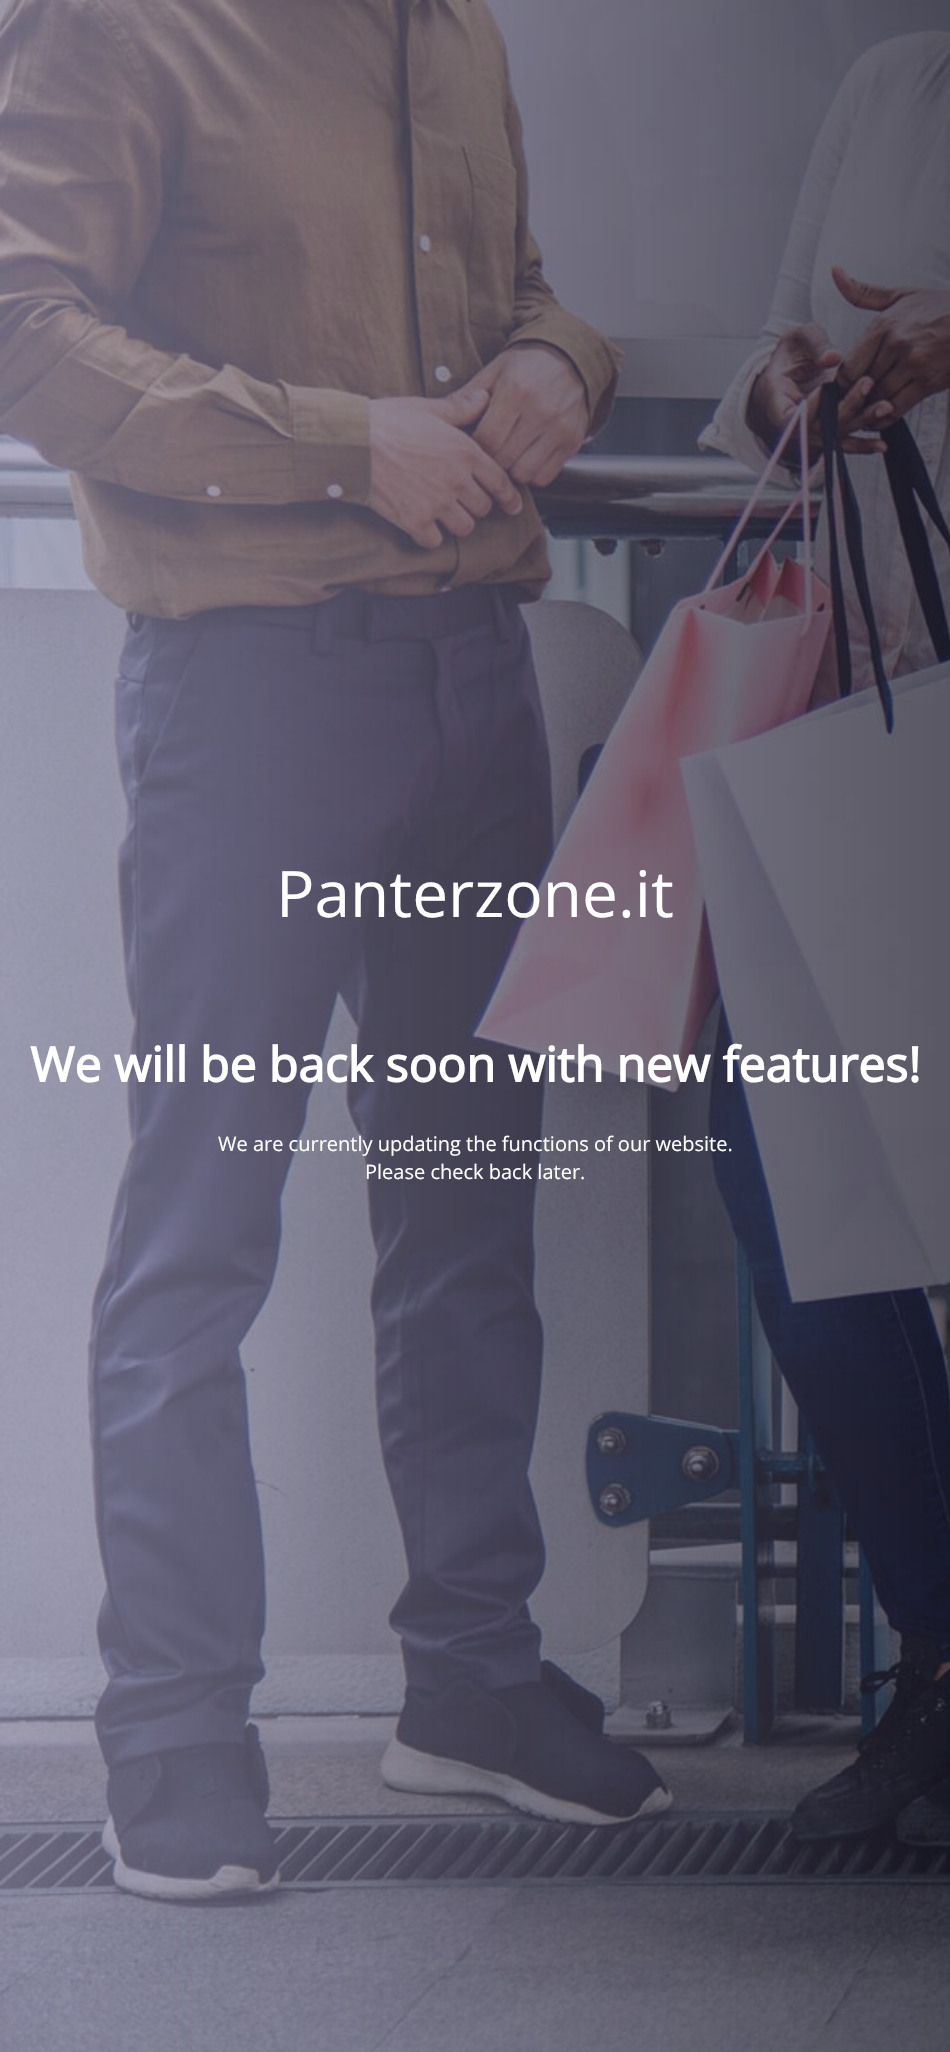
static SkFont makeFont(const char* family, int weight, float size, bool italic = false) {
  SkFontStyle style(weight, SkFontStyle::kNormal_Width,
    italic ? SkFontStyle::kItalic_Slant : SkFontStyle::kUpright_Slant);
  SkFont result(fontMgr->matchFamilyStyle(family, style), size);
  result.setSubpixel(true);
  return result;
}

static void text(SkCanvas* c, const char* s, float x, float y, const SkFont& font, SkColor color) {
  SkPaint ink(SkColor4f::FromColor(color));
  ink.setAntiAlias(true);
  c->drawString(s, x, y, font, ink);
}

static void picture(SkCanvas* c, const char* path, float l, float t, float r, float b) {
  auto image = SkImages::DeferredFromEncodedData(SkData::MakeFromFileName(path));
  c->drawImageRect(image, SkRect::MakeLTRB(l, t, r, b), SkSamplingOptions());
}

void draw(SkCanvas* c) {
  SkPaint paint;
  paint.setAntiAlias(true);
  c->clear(0xffffffff);
  picture(c, "img_01.png", 0, 0, 950, 2052);
  SkFont face1 = makeFont("Open Sans", 400, 64);
  text(c, "Panterzone.it", 276, 917, face1, 0xffffffff);
  SkFont face2 = makeFont("Open Sans", 700, 48);
  text(c, "We will be back soon with new features!", 30, 1082, face2, 0xffffffff);
  SkFont face3 = makeFont("Open Sans", 400, 20);
  text(c, "We are currently updating the functions of our website.", 218, 1151, face3, 0xffffffff);
  text(c, "Please check back later.", 365, 1179, face3, 0xffffffff);
}
